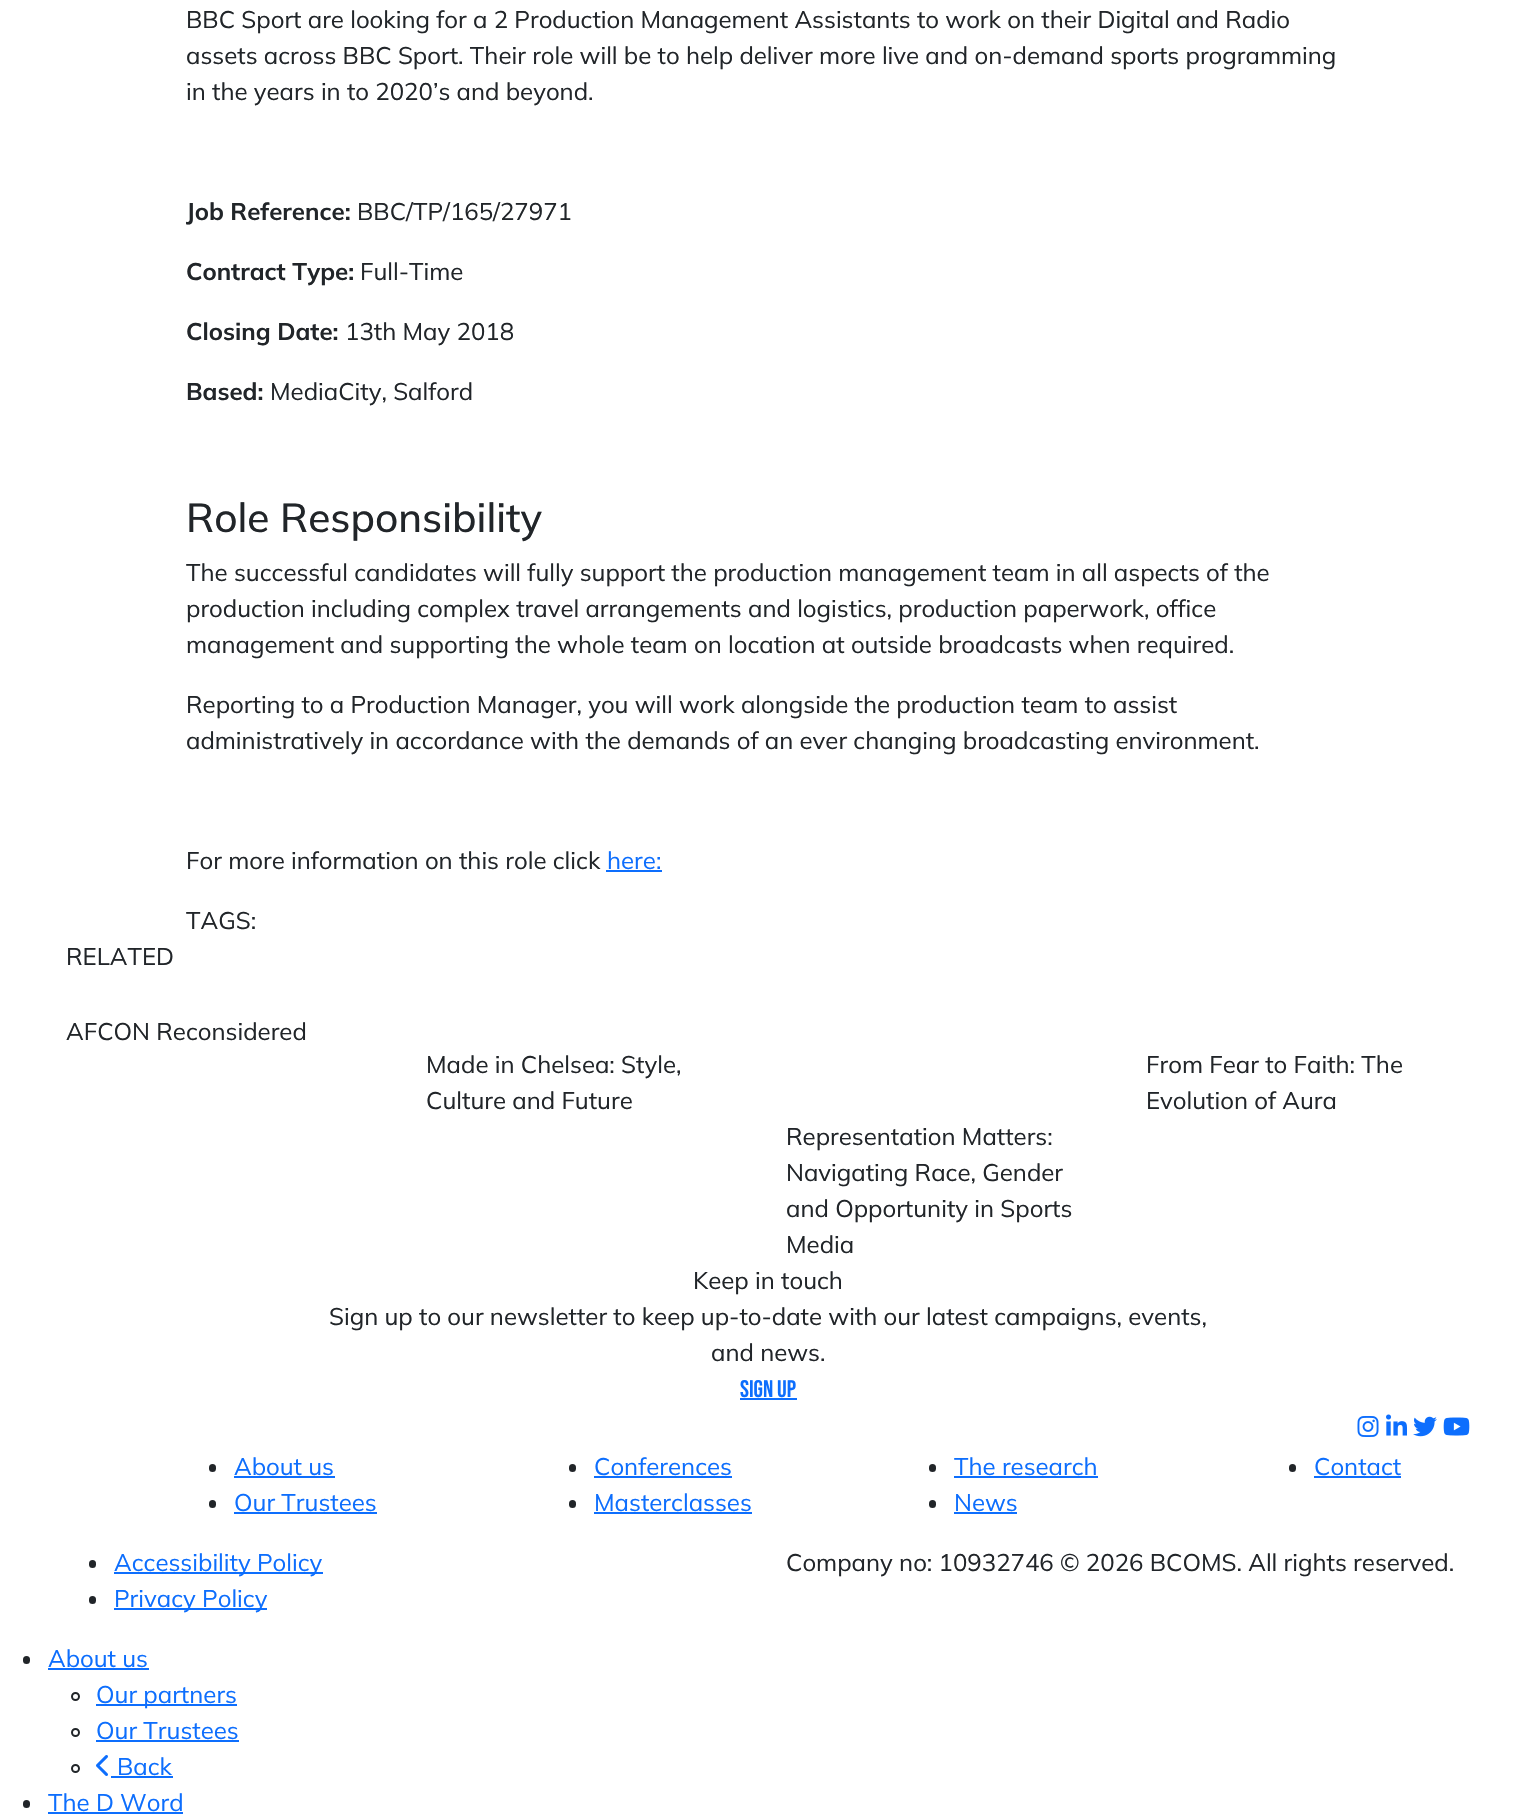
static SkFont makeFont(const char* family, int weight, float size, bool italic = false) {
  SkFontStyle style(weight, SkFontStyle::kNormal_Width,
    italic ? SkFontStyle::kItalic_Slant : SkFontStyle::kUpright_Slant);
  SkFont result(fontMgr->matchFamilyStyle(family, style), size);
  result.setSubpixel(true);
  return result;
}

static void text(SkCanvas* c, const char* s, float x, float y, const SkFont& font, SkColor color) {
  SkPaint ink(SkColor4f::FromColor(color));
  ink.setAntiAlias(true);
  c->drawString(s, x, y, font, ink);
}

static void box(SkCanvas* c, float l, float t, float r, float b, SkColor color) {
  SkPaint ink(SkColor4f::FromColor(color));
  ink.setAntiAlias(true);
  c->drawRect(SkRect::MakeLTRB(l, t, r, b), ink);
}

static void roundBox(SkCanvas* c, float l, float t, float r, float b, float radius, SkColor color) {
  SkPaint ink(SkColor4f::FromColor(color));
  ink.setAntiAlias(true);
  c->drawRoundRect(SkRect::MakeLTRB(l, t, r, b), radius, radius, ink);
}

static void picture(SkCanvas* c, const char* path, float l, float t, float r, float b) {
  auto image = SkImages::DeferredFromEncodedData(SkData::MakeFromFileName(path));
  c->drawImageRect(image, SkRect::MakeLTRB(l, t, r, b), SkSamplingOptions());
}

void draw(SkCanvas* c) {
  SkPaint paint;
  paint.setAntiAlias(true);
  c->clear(0xffffffff);
  SkFont face1 = makeFont("Mulish", 400, 24);
  text(c, "BBC Sport are looking for a 2 Production Management Assistants to work on their Digital and Radio", 186, 28, face1, 0xff212529);
  text(c, "assets across BBC Sport. Their role will be to help deliver more live and on-demand sports programming", 186, 64, face1, 0xff212529);
  text(c, "in the years in to 2020’s and beyond.", 186, 100, face1, 0xff212529);
  SkFont face2 = makeFont("Mulish", 700, 24);
  text(c, "Job Reference:", 186, 220, face2, 0xff212529);
  text(c, "BBC/TP/165/27971", 357, 220, face1, 0xff212529);
  text(c, "Contract Type:", 186, 280, face2, 0xff212529);
  text(c, "Full-Time", 360, 280, face1, 0xff212529);
  text(c, "Closing Date:", 186, 340, face2, 0xff212529);
  text(c, "13th May 2018", 345, 340, face1, 0xff212529);
  text(c, "Based:", 186, 400, face2, 0xff212529);
  text(c, "MediaCity, Salford", 270, 400, face1, 0xff212529);
  SkFont face3 = makeFont("Mulish", 500, 40.5f);
  text(c, "Role Responsibility", 186, 532, face3, 0xff212529);
  text(c, "The successful candidates will fully support the production management team in all aspects of the", 186, 581, face1, 0xff212529);
  text(c, "production including complex travel arrangements and logistics, production paperwork, office", 186, 617, face1, 0xff212529);
  text(c, "management and supporting the whole team on location at outside broadcasts when required.", 186, 653, face1, 0xff212529);
  text(c, "Reporting to a Production Manager, you will work alongside the production team to assist", 186, 713, face1, 0xff212529);
  text(c, "administratively in accordance with the demands of an ever changing broadcasting environment.", 186, 749, face1, 0xff212529);
  text(c, "For more information on this role click", 186, 869, face1, 0xff212529);
  text(c, "here:", 607, 869, face1, 0xff0d6efd);
  box(c, 606, 870, 662, 872, 0xff0d6efd);
  text(c, "TAGS:", 186, 929, face1, 0xff212529);
  text(c, "RELATED", 66, 965, face1, 0xff212529);
  text(c, "AFCON Reconsidered", 66, 1040, face1, 0xff212529);
  text(c, "Made in Chelsea: Style,", 426, 1073, face1, 0xff212529);
  text(c, "Culture and Future", 426, 1109, face1, 0xff212529);
  text(c, "From Fear to Faith: The", 1146, 1073, face1, 0xff212529);
  text(c, "Evolution of Aura", 1146, 1109, face1, 0xff212529);
  text(c, "Representation Matters:", 786, 1145, face1, 0xff212529);
  text(c, "Navigating Race, Gender", 786, 1181, face1, 0xff212529);
  text(c, "and Opportunity in Sports", 786, 1217, face1, 0xff212529);
  text(c, "Media", 786, 1253, face1, 0xff212529);
  text(c, "Keep in touch", 693, 1289, face1, 0xff212529);
  text(c, "Sign up to our newsletter to keep up-to-date with our latest campaigns, events,", 329, 1325, face1, 0xff212529);
  text(c, "and news.", 711, 1361, face1, 0xff212529);
  SkFont face4 = makeFont("Bebas Neue", 400, 24);
  text(c, "Sign up", 740, 1397, face4, 0xff0d6efd);
  box(c, 740, 1398, 797, 1400, 0xff0d6efd);
  picture(c, "img_01.png", 1357, 1416, 1379, 1437);
  picture(c, "img_02.png", 1386, 1414, 1407, 1436);
  picture(c, "img_03.png", 1413, 1416, 1437, 1437);
  picture(c, "img_04.png", 1443, 1417, 1470, 1436);
  roundBox(c, 209, 1464, 216, 1472, 3.5f, 0xff212529);
  text(c, "About us", 234, 1475, face1, 0xff0d6efd);
  box(c, 234, 1476, 335, 1478, 0xff0d6efd);
  roundBox(c, 209, 1500, 216, 1508, 3.5f, 0xff212529);
  text(c, "Our Trustees", 234, 1511, face1, 0xff0d6efd);
  box(c, 234, 1512, 377, 1514, 0xff0d6efd);
  roundBox(c, 569, 1464, 576, 1472, 3.5f, 0xff212529);
  text(c, "Conferences", 594, 1475, face1, 0xff0d6efd);
  box(c, 594, 1476, 732, 1478, 0xff0d6efd);
  roundBox(c, 569, 1500, 576, 1508, 3.5f, 0xff212529);
  text(c, "Masterclasses", 594, 1511, face1, 0xff0d6efd);
  box(c, 594, 1512, 752, 1514, 0xff0d6efd);
  roundBox(c, 929, 1464, 936, 1472, 3.5f, 0xff212529);
  text(c, "The research", 954, 1475, face1, 0xff0d6efd);
  box(c, 954, 1476, 1098, 1478, 0xff0d6efd);
  roundBox(c, 929, 1500, 936, 1508, 3.5f, 0xff212529);
  text(c, "News", 954, 1511, face1, 0xff0d6efd);
  box(c, 954, 1512, 1017, 1514, 0xff0d6efd);
  roundBox(c, 1289, 1464, 1296, 1472, 3.5f, 0xff212529);
  text(c, "Contact", 1314, 1475, face1, 0xff0d6efd);
  box(c, 1314, 1476, 1401, 1478, 0xff0d6efd);
  roundBox(c, 89, 1560, 96, 1568, 3.5f, 0xff212529);
  box(c, 114, 1572, 323, 1574, 0xff0d6efd);
  text(c, "Accessibility Policy", 114, 1571, face1, 0xff0d6efd);
  roundBox(c, 89, 1596, 96, 1604, 3.5f, 0xff212529);
  box(c, 114, 1608, 267, 1610, 0xff0d6efd);
  text(c, "Privacy Policy", 114, 1607, face1, 0xff0d6efd);
  text(c, "Company no: 10932746 © 2026 BCOMS. All rights reserved.", 786, 1571, face1, 0xff212529);
  roundBox(c, 23, 1656, 30, 1664, 3.5f, 0xff212529);
  text(c, "About us", 48, 1667, face1, 0xff0d6efd);
  box(c, 48, 1668, 149, 1670, 0xff0d6efd);
  paint.setStyle(SkPaint::kStroke_Style);
  paint.setStrokeWidth(2);
  paint.setColor(0xff212529);
  c->drawCircle(75.5f, 1696.5f, 3.5f, paint);
  box(c, 96, 1704, 237, 1706, 0xff0d6efd);
  text(c, "Our partners", 96, 1703, face1, 0xff0d6efd);
  c->drawCircle(75.5f, 1732.5f, 3.5f, paint);
  text(c, "Our Trustees", 96, 1739, face1, 0xff0d6efd);
  box(c, 96, 1740, 239, 1742, 0xff0d6efd);
  c->drawCircle(75.5f, 1768.5f, 3.5f, paint);
  picture(c, "img_05.png", 96, 1755, 108, 1776);
  text(c, "Back", 117, 1775, face1, 0xff0d6efd);
  box(c, 111, 1776, 173, 1778, 0xff0d6efd);
  roundBox(c, 23, 1800, 30, 1808, 3.5f, 0xff212529);
  text(c, "The D Word", 48, 1811, face1, 0xff0d6efd);
  box(c, 48, 1812, 183, 1814, 0xff0d6efd);
}
